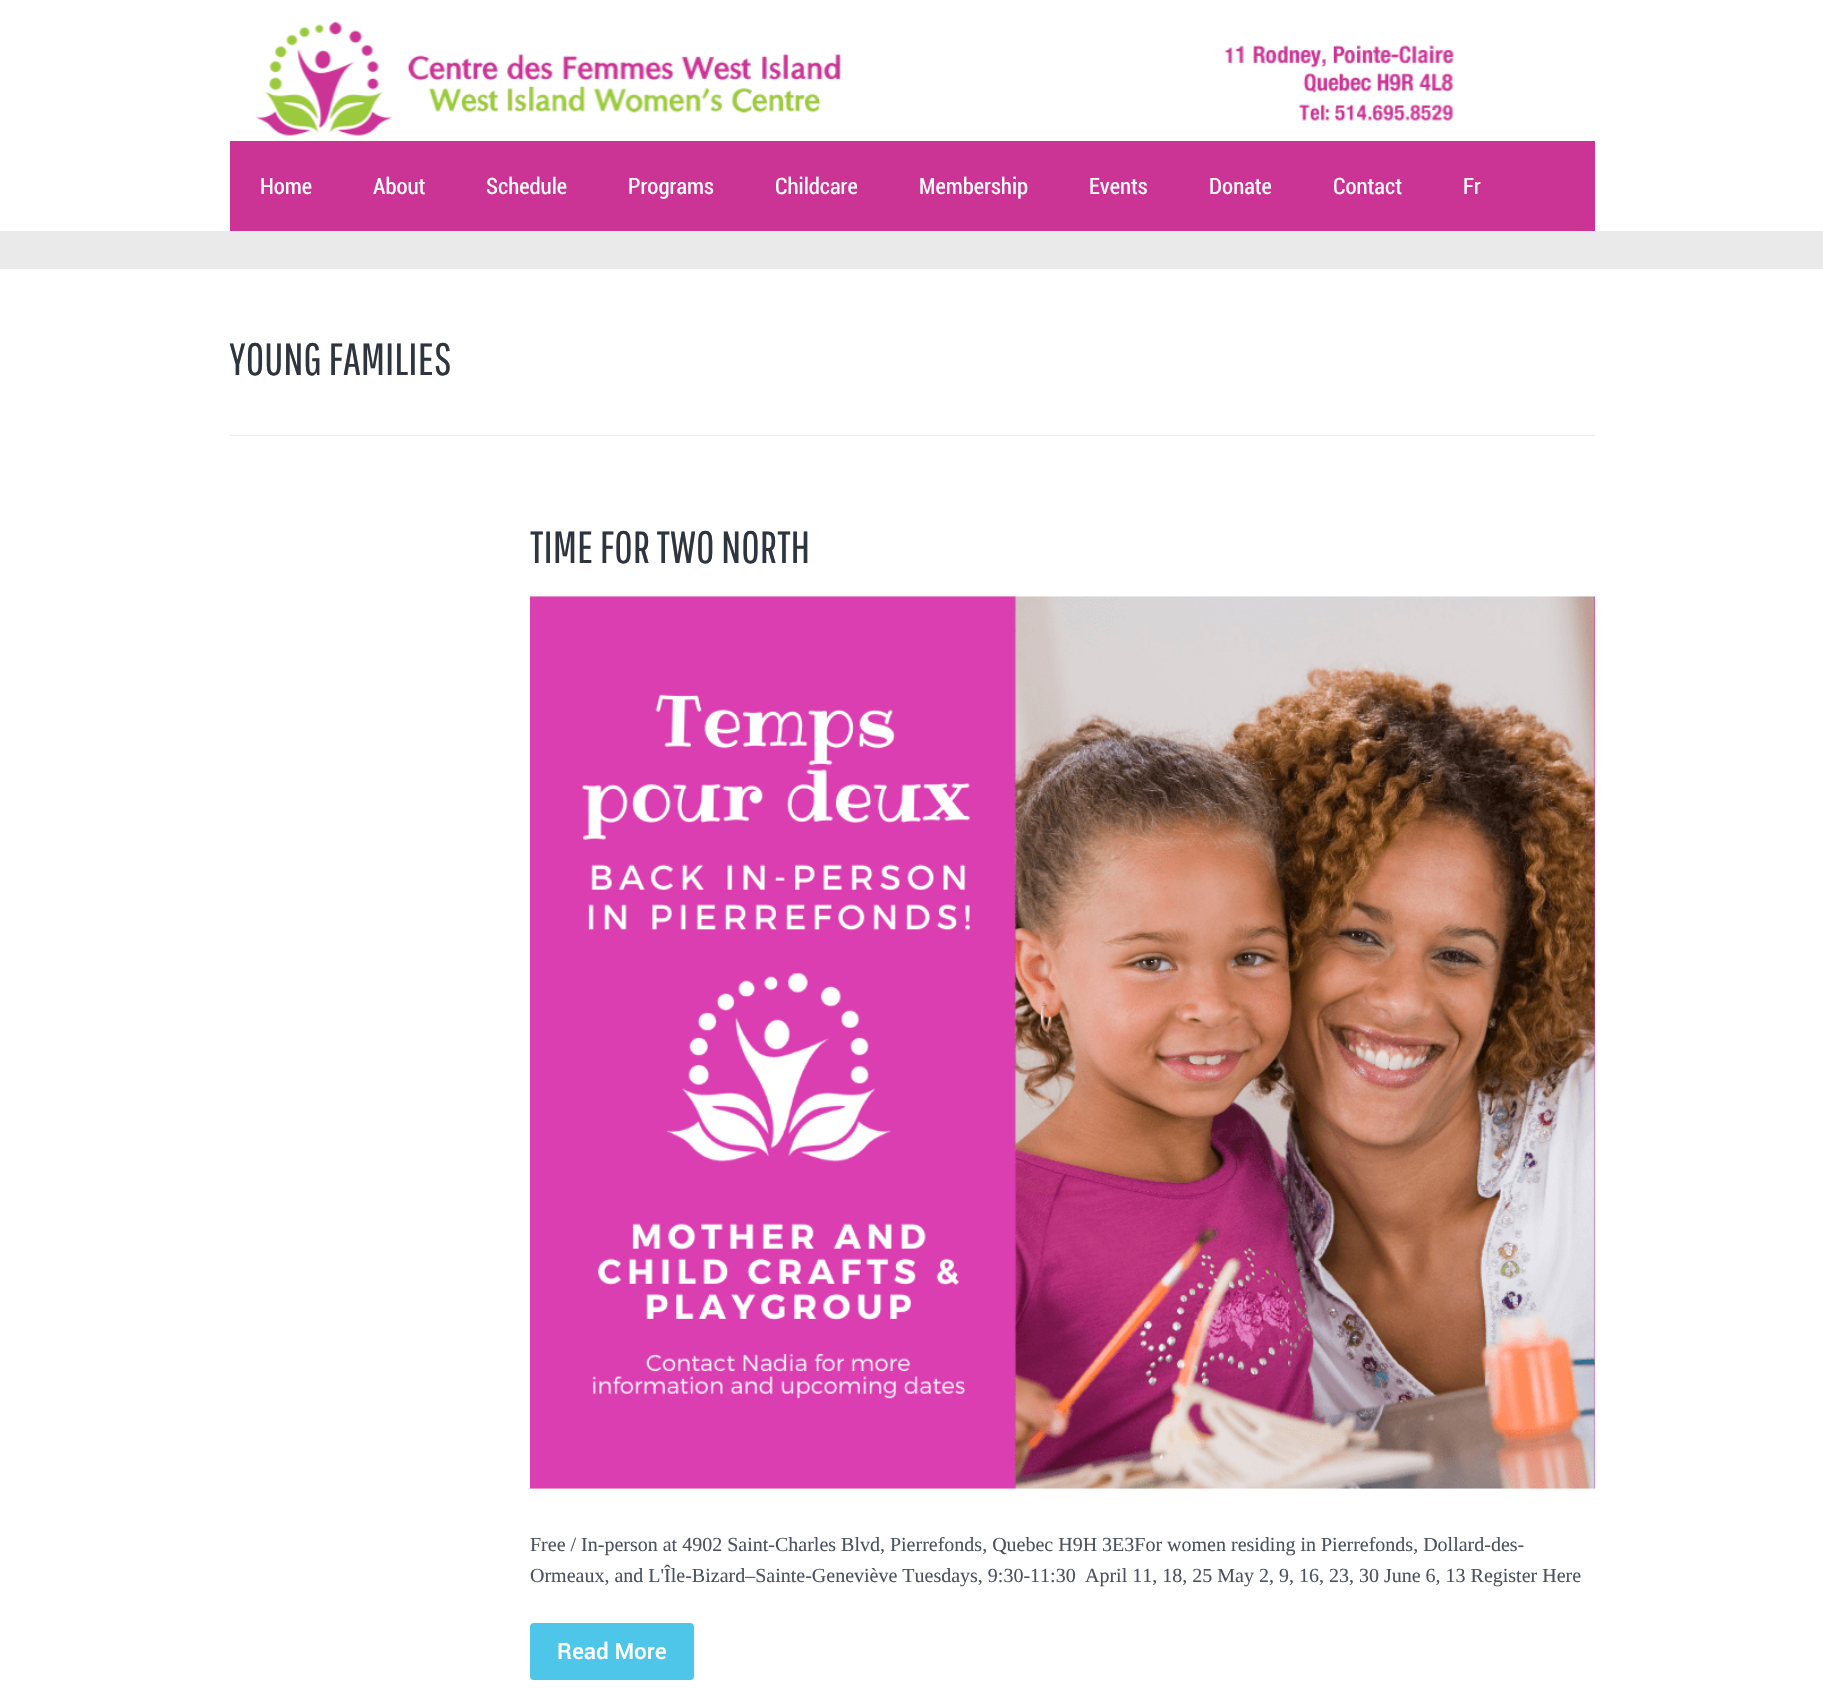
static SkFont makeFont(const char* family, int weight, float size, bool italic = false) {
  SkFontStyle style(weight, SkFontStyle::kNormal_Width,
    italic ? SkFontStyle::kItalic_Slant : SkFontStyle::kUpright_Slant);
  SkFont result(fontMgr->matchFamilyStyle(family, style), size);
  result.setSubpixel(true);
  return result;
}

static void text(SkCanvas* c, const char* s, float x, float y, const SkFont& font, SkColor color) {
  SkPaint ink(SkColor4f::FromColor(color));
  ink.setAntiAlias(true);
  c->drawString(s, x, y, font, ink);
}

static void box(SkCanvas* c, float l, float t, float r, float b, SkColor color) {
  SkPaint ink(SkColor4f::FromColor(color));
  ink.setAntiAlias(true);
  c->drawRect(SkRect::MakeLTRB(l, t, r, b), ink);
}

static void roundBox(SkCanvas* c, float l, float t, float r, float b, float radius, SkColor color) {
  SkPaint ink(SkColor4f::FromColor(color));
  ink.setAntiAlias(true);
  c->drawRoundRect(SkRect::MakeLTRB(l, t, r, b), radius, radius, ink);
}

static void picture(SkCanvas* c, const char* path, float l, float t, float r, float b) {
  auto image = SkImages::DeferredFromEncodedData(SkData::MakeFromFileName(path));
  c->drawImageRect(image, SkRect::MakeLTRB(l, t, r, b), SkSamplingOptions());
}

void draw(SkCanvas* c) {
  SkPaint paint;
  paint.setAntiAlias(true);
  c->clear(0xffffffff);
  picture(c, "img_01.png", 255, 22, 1455, 136);
  box(c, 230, 141, 1595, 231, 0xffcb3394);
  SkFont face1 = makeFont("Roboto", 400, 22.5f);
  text(c, "Home", 260, 194, face1, 0xffffffff);
  text(c, "About", 373, 194, face1, 0xffffffff);
  text(c, "Schedule", 486, 194, face1, 0xffffffff);
  text(c, "Programs", 628, 194, face1, 0xffffffff);
  text(c, "Childcare", 775, 194, face1, 0xffffffff);
  text(c, "Membership", 919, 194, face1, 0xffffffff);
  text(c, "Events", 1089, 194, face1, 0xffffffff);
  text(c, "Donate", 1209, 194, face1, 0xffffffff);
  text(c, "Contact", 1333, 194, face1, 0xffffffff);
  text(c, "Fr", 1463, 194, face1, 0xffffffff);
  box(c, 0, 231, 1823, 269, 0xffeaeaea);
  SkFont face2 = makeFont("Pathway Gothic One", 400, 45);
  text(c, "YOUNG FAMILIES", 229, 375, face2, 0xff2f353f);
  box(c, 230, 435, 1595, 436, 0xffeaeaea);
  text(c, "TIME FOR TWO NORTH", 530, 563, face2, 0xff2f353f);
  picture(c, "img_02.png", 530, 596, 1595, 1489);
  SkFont face3 = makeFont("Liberation Serif", 400, 20);
  text(c, "Free / In-person at 4902 Saint-Charles Blvd, Pierrefonds, Quebec H9H 3E3For women residing in Pierrefonds, Dollard-des-", 530, 1551, face3, 0xff4b525d);
  text(c, "Ormeaux, and L'Île-Bizard–Sainte-Geneviève Tuesdays, 9:30-11:30", 530, 1582, face3, 0xff4b525d);
  text(c, "April 11, 18, 25 May 2, 9, 16, 23, 30 June 6, 13 Register Here", 1085, 1582, face3, 0xff4b525d);
  roundBox(c, 530, 1623, 694, 1680, 4, 0xff4ec6e9);
  SkFont face4 = makeFont("Roboto", 500, 22.5f);
  text(c, "Read More", 557, 1659, face4, 0xffffffff);
}
